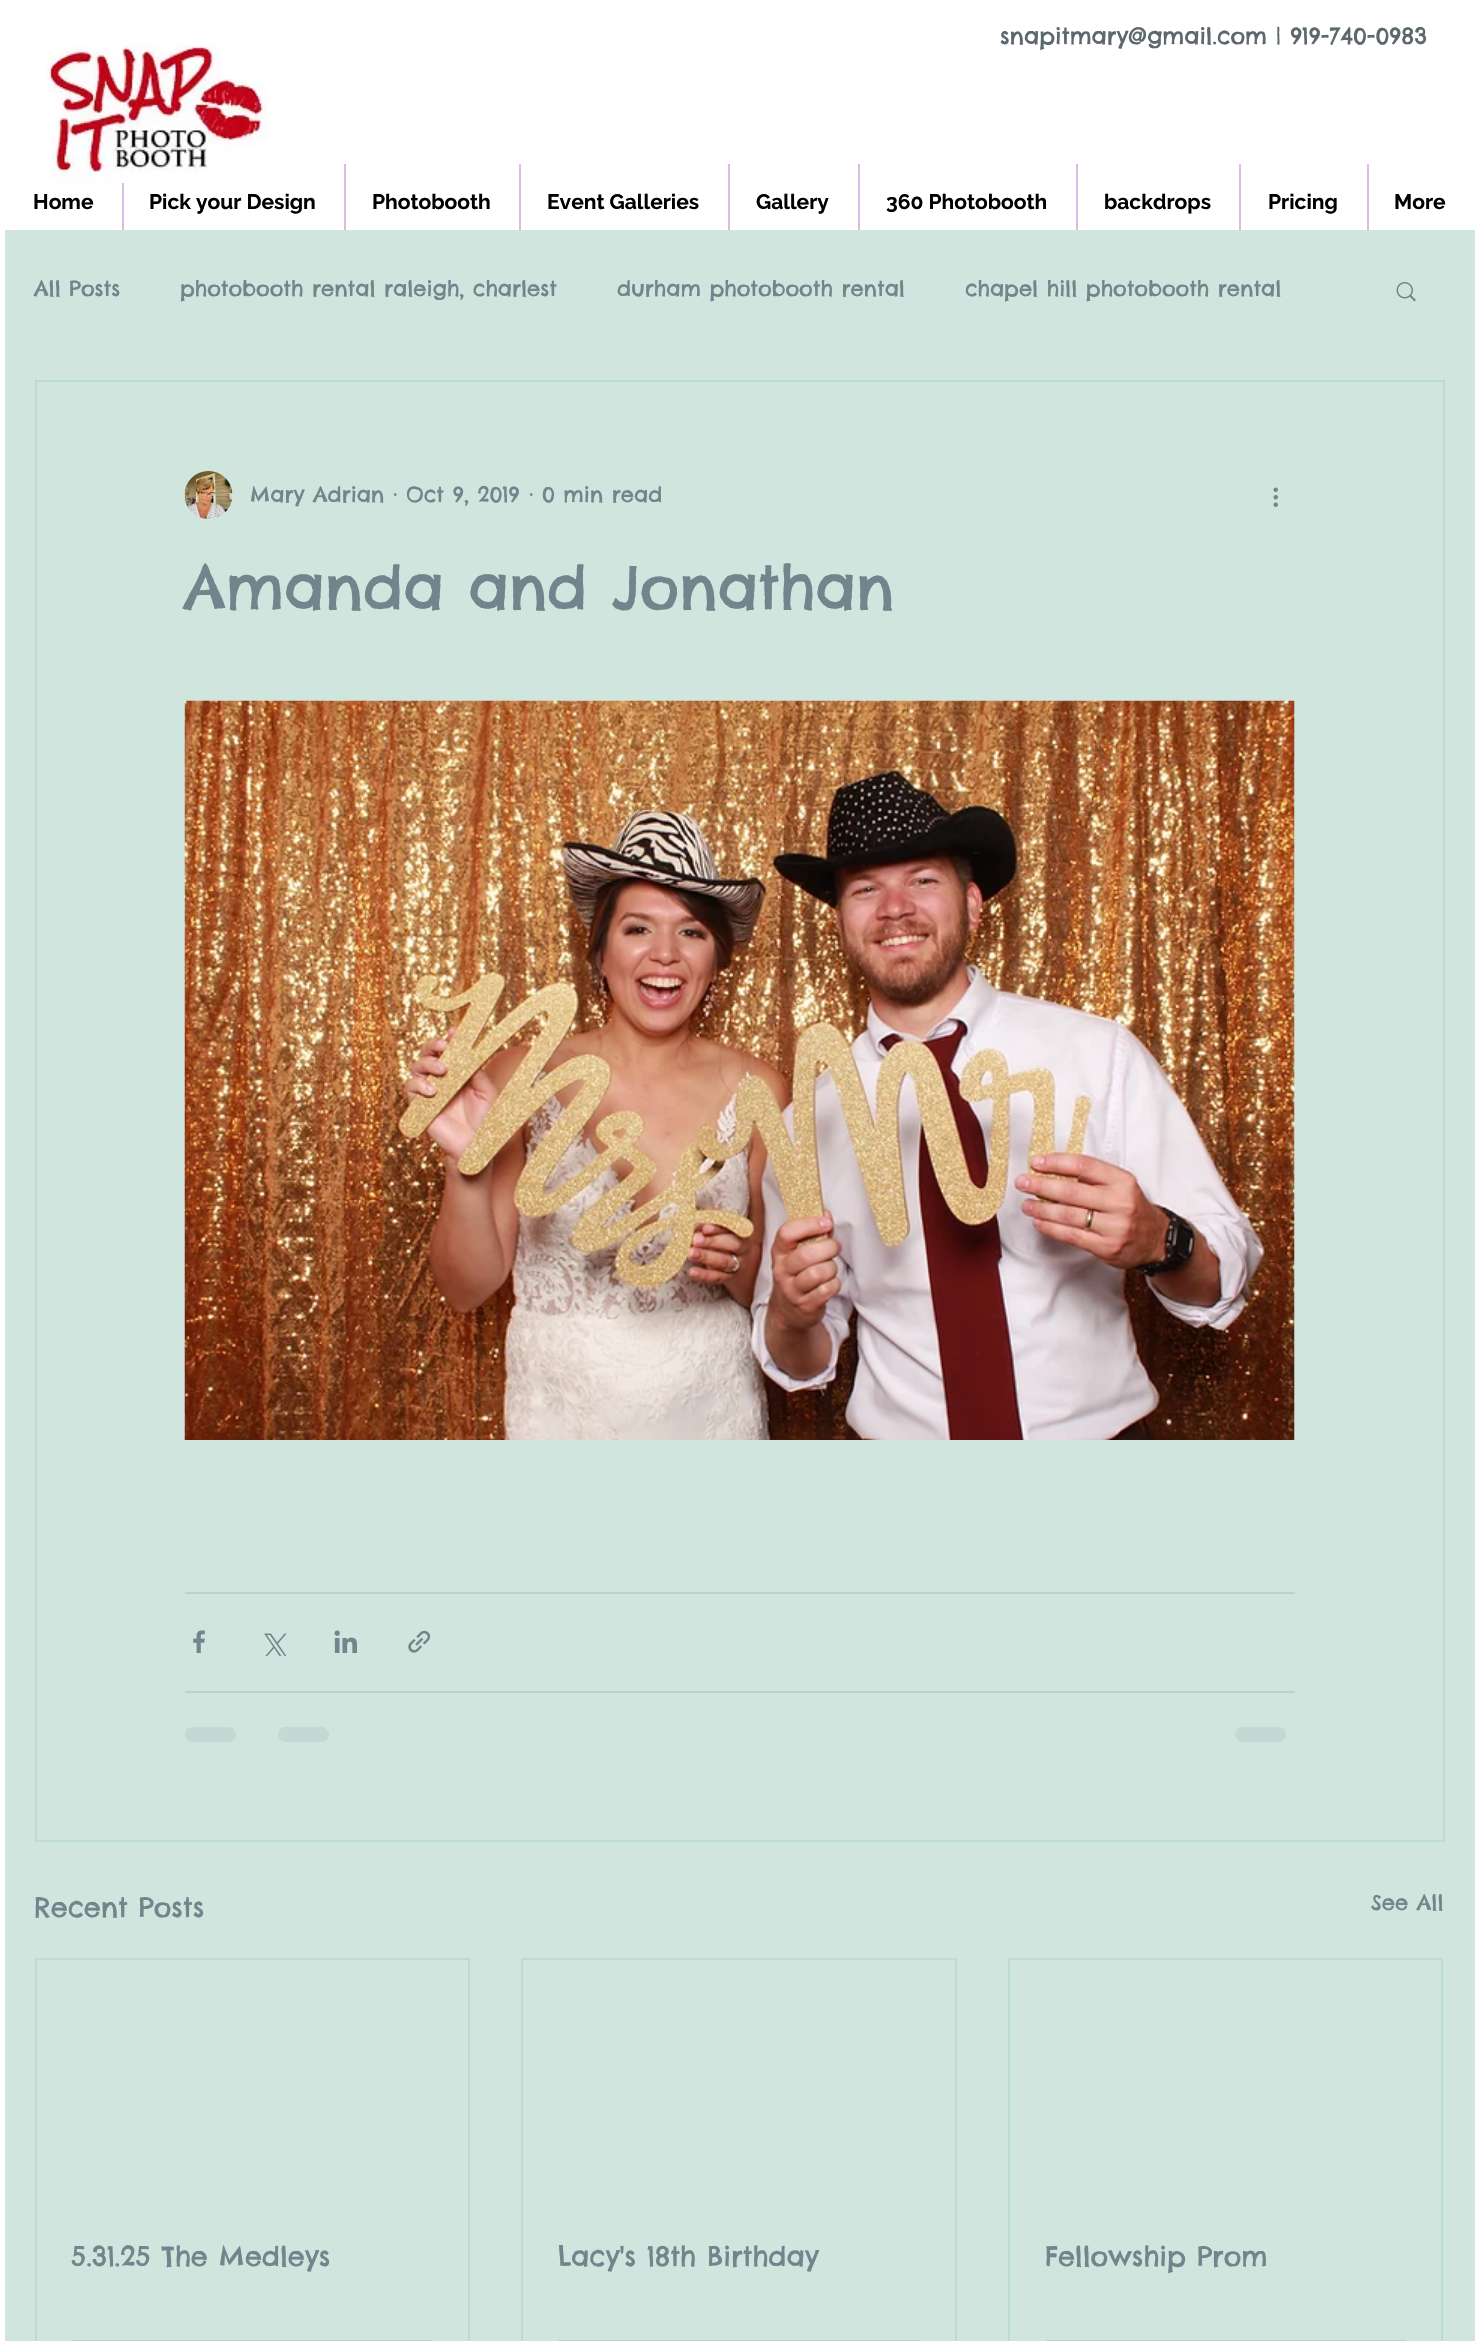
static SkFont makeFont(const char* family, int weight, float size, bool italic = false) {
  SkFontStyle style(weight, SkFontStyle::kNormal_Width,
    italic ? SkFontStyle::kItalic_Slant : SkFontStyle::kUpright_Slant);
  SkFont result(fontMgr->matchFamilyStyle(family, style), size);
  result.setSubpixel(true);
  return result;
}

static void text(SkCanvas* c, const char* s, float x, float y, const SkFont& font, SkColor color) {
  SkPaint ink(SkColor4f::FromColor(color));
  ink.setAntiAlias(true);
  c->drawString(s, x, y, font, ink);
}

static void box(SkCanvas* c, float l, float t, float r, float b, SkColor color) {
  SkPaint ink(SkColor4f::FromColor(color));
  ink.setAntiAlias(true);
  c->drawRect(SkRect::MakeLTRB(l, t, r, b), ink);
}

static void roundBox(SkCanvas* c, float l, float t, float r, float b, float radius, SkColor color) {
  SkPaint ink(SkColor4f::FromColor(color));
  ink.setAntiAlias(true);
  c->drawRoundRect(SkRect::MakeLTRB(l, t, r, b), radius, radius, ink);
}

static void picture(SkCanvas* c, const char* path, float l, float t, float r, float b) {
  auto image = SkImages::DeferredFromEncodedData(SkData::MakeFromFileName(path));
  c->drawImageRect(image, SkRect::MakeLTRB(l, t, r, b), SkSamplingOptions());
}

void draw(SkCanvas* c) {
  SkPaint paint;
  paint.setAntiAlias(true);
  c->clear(0xffffffff);
  SkFont face1 = makeFont("Chelsea Market", 400, 22.5f);
  text(c, "snapitmary@gmail.com | 919-740-0983", 1000, 44, face1, 0xff5c686c);
  picture(c, "img_01.png", 46, 43, 268, 183);
  SkFont face2 = makeFont("Raleway", 700, 21);
  text(c, "Home", 33, 209, face2, 0xff000000);
  box(c, 122, 183, 124, 230, 0xffd8bde2);
  text(c, "Pick your Design", 149, 209, face2, 0xff000000);
  box(c, 344, 164, 346, 230, 0xffd8bde2);
  text(c, "Photobooth", 372, 209, face2, 0xff000000);
  box(c, 519, 164, 521, 230, 0xffd8bde2);
  text(c, "Event Galleries", 547, 209, face2, 0xff000000);
  box(c, 728, 164, 730, 230, 0xffd8bde2);
  text(c, "Gallery", 756, 209, face2, 0xff000000);
  box(c, 858, 164, 860, 230, 0xffd8bde2);
  text(c, "360 Photobooth", 886, 209, face2, 0xff000000);
  box(c, 1076, 164, 1078, 230, 0xffd8bde2);
  text(c, "backdrops", 1104, 209, face2, 0xff000000);
  box(c, 1239, 164, 1241, 230, 0xffd8bde2);
  text(c, "Pricing", 1268, 209, face2, 0xff000000);
  box(c, 1367, 164, 1369, 230, 0xffd8bde2);
  text(c, "More", 1394, 209, face2, 0xff000000);
  box(c, 5, 230, 1475, 2341, 0xffd0e5de);
  SkFont face3 = makeFont("Chelsea Market", 400, 21);
  text(c, "All Posts", 34, 296, face3, 0xff72858c);
  text(c, "photobooth rental raleigh, charlest", 180, 296, face3, 0xff72858c);
  text(c, "durham photobooth rental", 617, 296, face3, 0xff72858c);
  text(c, "chapel hill photobooth rental", 965, 296, face3, 0xff72858c);
  picture(c, "img_02.png", 1396, 282, 1416, 302);
  paint.setStyle(SkPaint::kStroke_Style);
  paint.setStrokeWidth(2);
  paint.setColor(0xffbadcd1);
  c->drawRect(SkRect::MakeLTRB(36, 381, 1444, 1841), paint);
  picture(c, "img_03.png", 184, 471, 233, 519);
  text(c, "Mary Adrian", 250, 502, face3, 0xff72858c);
  text(c, "·", 393, 502, face3, 0xff72858c);
  text(c, "Oct 9, 2019", 406, 502, face3, 0xff72858c);
  text(c, "·", 529, 502, face3, 0xff72858c);
  text(c, "0 min read", 542, 502, face3, 0xff72858c);
  picture(c, "img_04.png", 1273, 487, 1278, 507);
  SkFont face4 = makeFont("Chelsea Market", 400, 60);
  text(c, "Amanda and Jonathan", 184, 609, face4, 0xff72858c);
  picture(c, "img_05.png", 184, 700, 1295, 1440);
  box(c, 185, 1592, 1295, 1594, 0xffbdd2ce);
  picture(c, "img_06.png", 193, 1630, 205, 1653);
  picture(c, "img_07.png", 264, 1633, 287, 1656);
  picture(c, "img_08.png", 334, 1630, 357, 1653);
  picture(c, "img_09.png", 408, 1630, 431, 1653);
  box(c, 185, 1691, 1295, 1693, 0xffbdd2ce);
  roundBox(c, 185, 1727, 236, 1742, 7.5f, 0xffc5d9d4);
  roundBox(c, 278, 1727, 329, 1742, 7.5f, 0xffc5d9d4);
  roundBox(c, 1235, 1727, 1286, 1742, 7.5f, 0xffc5d9d4);
  SkFont face5 = makeFont("Chelsea Market", 400, 27);
  text(c, "Recent Posts", 34, 1917, face5, 0xff72858c);
  text(c, "See All", 1371, 1910, face3, 0xff72858c);
  c->drawRect(SkRect::MakeLTRB(36, 1959, 469, 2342), paint);
  text(c, "5.31.25 The Medleys", 71, 2266, face5, 0xff72858c);
  box(c, 72, 2340, 432, 2341, 0xffbdd2ce);
  c->drawRect(SkRect::MakeLTRB(522, 1959, 956, 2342), paint);
  text(c, "Lacy's 18th Birthday", 558, 2266, face5, 0xff72858c);
  box(c, 558, 2340, 920, 2341, 0xffbdd2ce);
  c->drawRect(SkRect::MakeLTRB(1009, 1959, 1442, 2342), paint);
  text(c, "Fellowship Prom", 1045, 2266, face5, 0xff72858c);
  box(c, 1046, 2340, 1406, 2341, 0xffbdd2ce);
}
